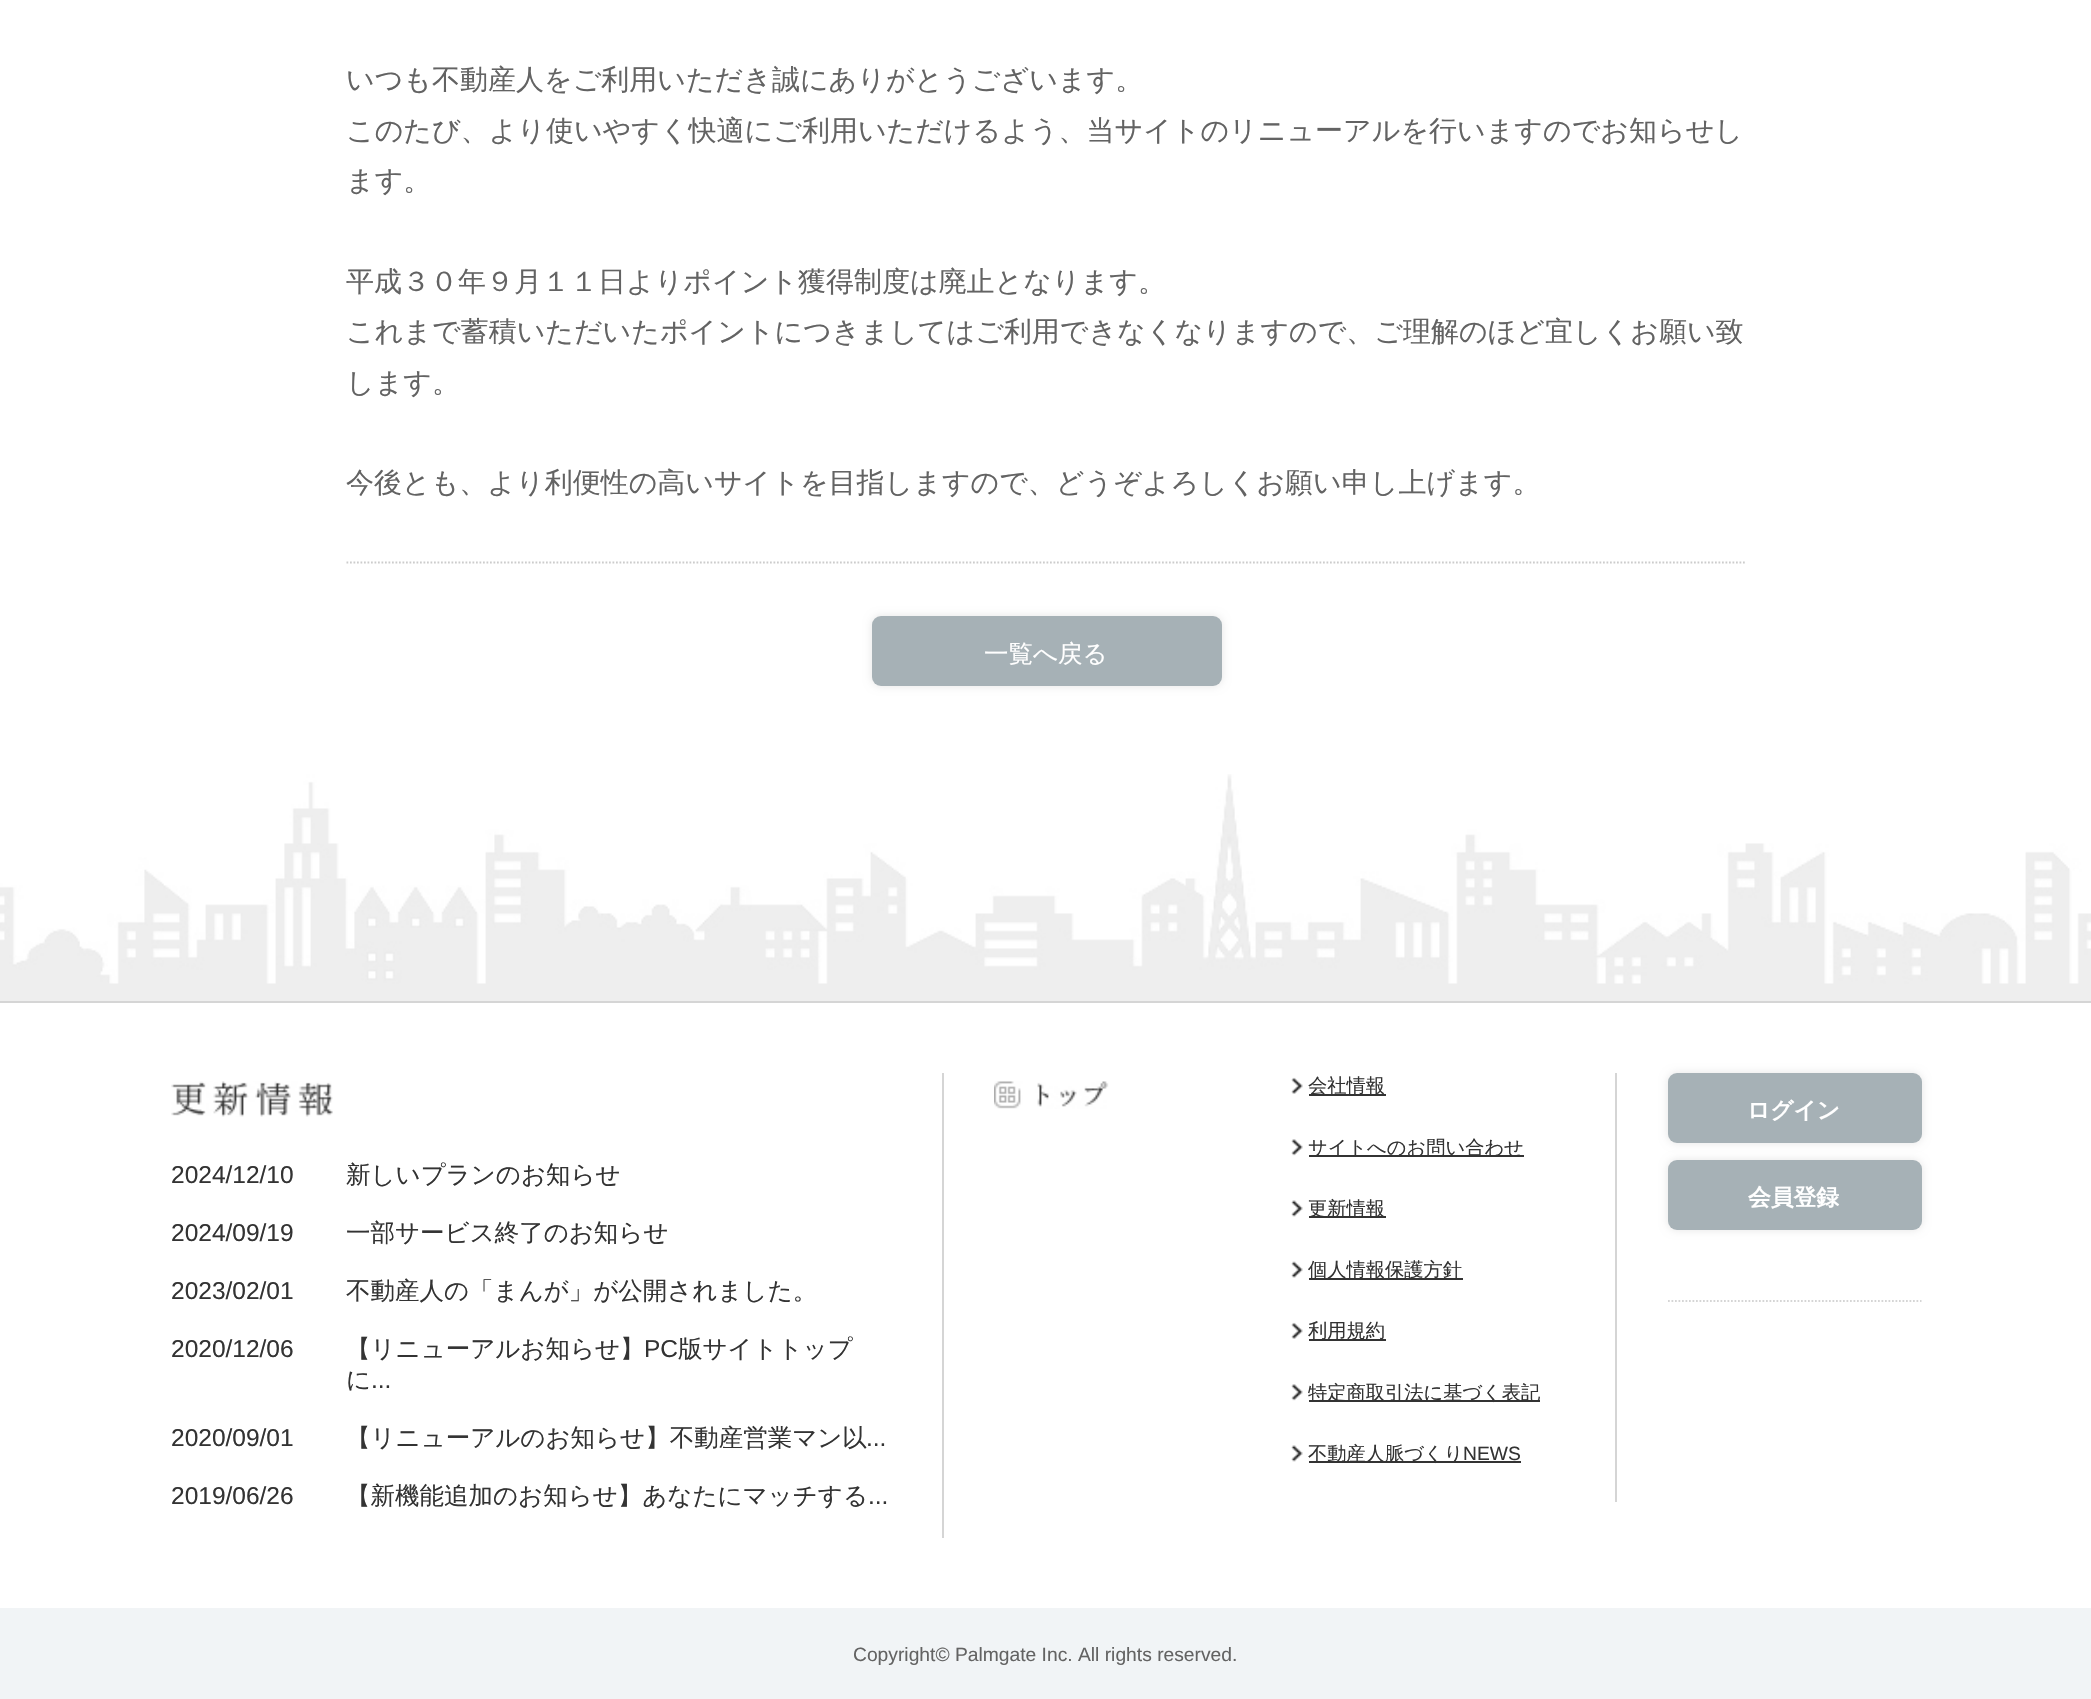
static SkFont makeFont(const char* family, int weight, float size, bool italic = false) {
  SkFontStyle style(weight, SkFontStyle::kNormal_Width,
    italic ? SkFontStyle::kItalic_Slant : SkFontStyle::kUpright_Slant);
  SkFont result(fontMgr->matchFamilyStyle(family, style), size);
  result.setSubpixel(true);
  return result;
}

static void text(SkCanvas* c, const char* s, float x, float y, const SkFont& font, SkColor color) {
  SkPaint ink(SkColor4f::FromColor(color));
  ink.setAntiAlias(true);
  c->drawString(s, x, y, font, ink);
}

static void box(SkCanvas* c, float l, float t, float r, float b, SkColor color) {
  SkPaint ink(SkColor4f::FromColor(color));
  ink.setAntiAlias(true);
  c->drawRect(SkRect::MakeLTRB(l, t, r, b), ink);
}

static void roundBox(SkCanvas* c, float l, float t, float r, float b, float radius, SkColor color) {
  SkPaint ink(SkColor4f::FromColor(color));
  ink.setAntiAlias(true);
  c->drawRoundRect(SkRect::MakeLTRB(l, t, r, b), radius, radius, ink);
}

static void picture(SkCanvas* c, const char* path, float l, float t, float r, float b) {
  auto image = SkImages::DeferredFromEncodedData(SkData::MakeFromFileName(path));
  c->drawImageRect(image, SkRect::MakeLTRB(l, t, r, b), SkSamplingOptions());
}

void draw(SkCanvas* c) {
  SkPaint paint;
  paint.setAntiAlias(true);
  c->clear(0xffffffff);
  paint.setStyle(SkPaint::kStroke_Style);
  paint.setStrokeWidth(1.8f);
  paint.setColor(0xffcccccc);
  paint.setPathEffect(SkDashPathEffect::Make({{1.75f, 1.75f}}, 0));
  c->drawPath(SkPathBuilder().moveTo(346.5f, 562.5f).lineTo(1746.5f, 562.5f).detach(), paint);
  paint.setPathEffect(nullptr);
  SkFont face1 = makeFont("WenQuanYi Zen Hei", 500, 28);
  text(c, "いつも不動産人をご利用いただき誠にありがとうございます。", 346, 89, face1, 0xff636363);
  text(c, "このたび、より使いやすく快適にご利用いただけるよう、当サイトのリニューアルを行いますのでお知らせし", 346, 140, face1, 0xff636363);
  text(c, "ます。", 346, 190, face1, 0xff636363);
  text(c, "平成３０年９月１１日よりポイント獲得制度は廃止となります。", 346, 291, face1, 0xff636363);
  text(c, "これまで蓄積いただいたポイントにつきましてはご利用できなくなりますので、ご理解のほど宜しくお願い致", 346, 341, face1, 0xff636363);
  text(c, "します。", 346, 392, face1, 0xff636363);
  text(c, "今後とも、より利便性の高いサイトを目指しますので、どうぞよろしくお願い申し上げます。", 346, 492, face1, 0xff636363);
  paint.setStyle(SkPaint::kFill_Style);
  paint.setColor(0x1a000000);
  paint.setMaskFilter(SkMaskFilter::MakeBlur(kNormal_SkBlurStyle, 4.5f));
  c->drawRoundRect(SkRect::MakeLTRB(872, 616, 1222, 686), 9, 9, paint);
  paint.setMaskFilter(nullptr);
  roundBox(c, 872, 616, 1222, 686, 9, 0xffa6b1b6);
  SkFont face2 = makeFont("WenQuanYi Zen Hei", 500, 24.5f);
  text(c, "一覧へ戻る", 984, 662, face2, 0xffffffff);
  picture(c, "img_01.png", 0, 774, 2091, 1001);
  box(c, 0, 1001, 2091, 1003, 0xffd5d5d5);
  box(c, 942, 1073, 944, 1538, 0xffd5d5d5);
  picture(c, "img_02.png", 171, 1081, 333, 1117);
  SkFont face3 = makeFont("Liberation Sans", 400, 24.5f);
  text(c, "2024/12/10", 171, 1183, face3, 0xff333333);
  text(c, "新しいプランのお知らせ", 346, 1183, face2, 0xff333333);
  text(c, "2024/09/19", 171, 1241, face3, 0xff333333);
  text(c, "一部サービス終了のお知らせ", 346, 1241, face2, 0xff333333);
  text(c, "2023/02/01", 171, 1299, face3, 0xff333333);
  text(c, "不動産人の「まんが」が公開されました。", 346, 1299, face2, 0xff333333);
  text(c, "2020/12/06", 171, 1357, face3, 0xff333333);
  text(c, "【リニューアルお知らせ】", 346, 1357, face2, 0xff333333);
  text(c, "PC", 644, 1357, face3, 0xff333333);
  text(c, "版サイトトップ", 678, 1357, face2, 0xff333333);
  text(c, "に", 346, 1388, face2, 0xff333333);
  text(c, "...", 371, 1388, face3, 0xff333333);
  text(c, "2020/09/01", 171, 1446, face3, 0xff333333);
  text(c, "【リニューアルのお知らせ】不動産営業マン以", 346, 1446, face2, 0xff333333);
  text(c, "...", 866, 1446, face3, 0xff333333);
  text(c, "2019/06/26", 171, 1504, face3, 0xff333333);
  text(c, "【新機能追加のお知らせ】あなたにマッチする", 346, 1504, face2, 0xff333333);
  text(c, "...", 868, 1504, face3, 0xff333333);
  box(c, 1615, 1073, 1617, 1502, 0xffd5d5d5);
  picture(c, "img_03.png", 994, 1081, 1109, 1109);
  picture(c, "img_04.png", 1291, 1077, 1303, 1094);
  box(c, 1309, 1094, 1386, 1096, 0xff333333);
  SkFont face4 = makeFont("WenQuanYi Zen Hei", 500, 19.25f);
  text(c, "会社情報", 1308, 1092, face4, 0xff333333);
  picture(c, "img_05.png", 1291, 1139, 1303, 1156);
  box(c, 1309, 1155, 1524, 1157, 0xff333333);
  text(c, "サイトへのお問い合わせ", 1308, 1154, face4, 0xff333333);
  picture(c, "img_06.png", 1291, 1200, 1303, 1217);
  box(c, 1309, 1216, 1386, 1218, 0xff333333);
  text(c, "更新情報", 1308, 1215, face4, 0xff333333);
  picture(c, "img_07.png", 1291, 1261, 1303, 1278);
  box(c, 1309, 1278, 1463, 1280, 0xff333333);
  text(c, "個人情報保護方針", 1308, 1276, face4, 0xff333333);
  picture(c, "img_08.png", 1291, 1322, 1303, 1339);
  box(c, 1309, 1339, 1386, 1341, 0xff333333);
  text(c, "利用規約", 1308, 1337, face4, 0xff333333);
  picture(c, "img_05.png", 1291, 1384, 1303, 1401);
  box(c, 1309, 1400, 1540, 1402, 0xff333333);
  text(c, "特定商取引法に基づく表記", 1308, 1399, face4, 0xff333333);
  picture(c, "img_06.png", 1291, 1445, 1303, 1462);
  box(c, 1309, 1461, 1521, 1463, 0xff333333);
  text(c, "不動産人脈づくり", 1308, 1460, face4, 0xff333333);
  SkFont face5 = makeFont("Liberation Sans", 400, 19.25f);
  text(c, "NEWS", 1463, 1460, face5, 0xff333333);
  paint.setStyle(SkPaint::kStroke_Style);
  paint.setColor(0xffd5d5d5);
  paint.setPathEffect(SkDashPathEffect::Make({{1.75f, 1.75f}}, 0));
  c->drawPath(SkPathBuilder().moveTo(1668, 1301).lineTo(1921.5f, 1301).detach(), paint);
  paint.setPathEffect(nullptr);
  paint.setStyle(SkPaint::kFill_Style);
  paint.setColor(0x1a000000);
  paint.setMaskFilter(SkMaskFilter::MakeBlur(kNormal_SkBlurStyle, 4.5f));
  c->drawRoundRect(SkRect::MakeLTRB(1668, 1073, 1922, 1143), 9, 9, paint);
  paint.setMaskFilter(nullptr);
  roundBox(c, 1668, 1073, 1922, 1143, 9, 0xffa6b1b6);
  SkFont face6 = makeFont("WenQuanYi Zen Hei", 700, 22.75f);
  text(c, "ログイン", 1747, 1118, face6, 0xffffffff);
  paint.setMaskFilter(SkMaskFilter::MakeBlur(kNormal_SkBlurStyle, 4.5f));
  c->drawRoundRect(SkRect::MakeLTRB(1668, 1160, 1922, 1230), 9, 9, paint);
  paint.setMaskFilter(nullptr);
  roundBox(c, 1668, 1160, 1922, 1230, 9, 0xffa6b1b6);
  text(c, "会員登録", 1748, 1205, face6, 0xffffffff);
  box(c, 0, 1608, 2091, 1699, 0xfff1f4f6);
  text(c, "Copyright© Palmgate Inc. All rights reserved.", 853, 1661, face5, 0xff636363);
}
